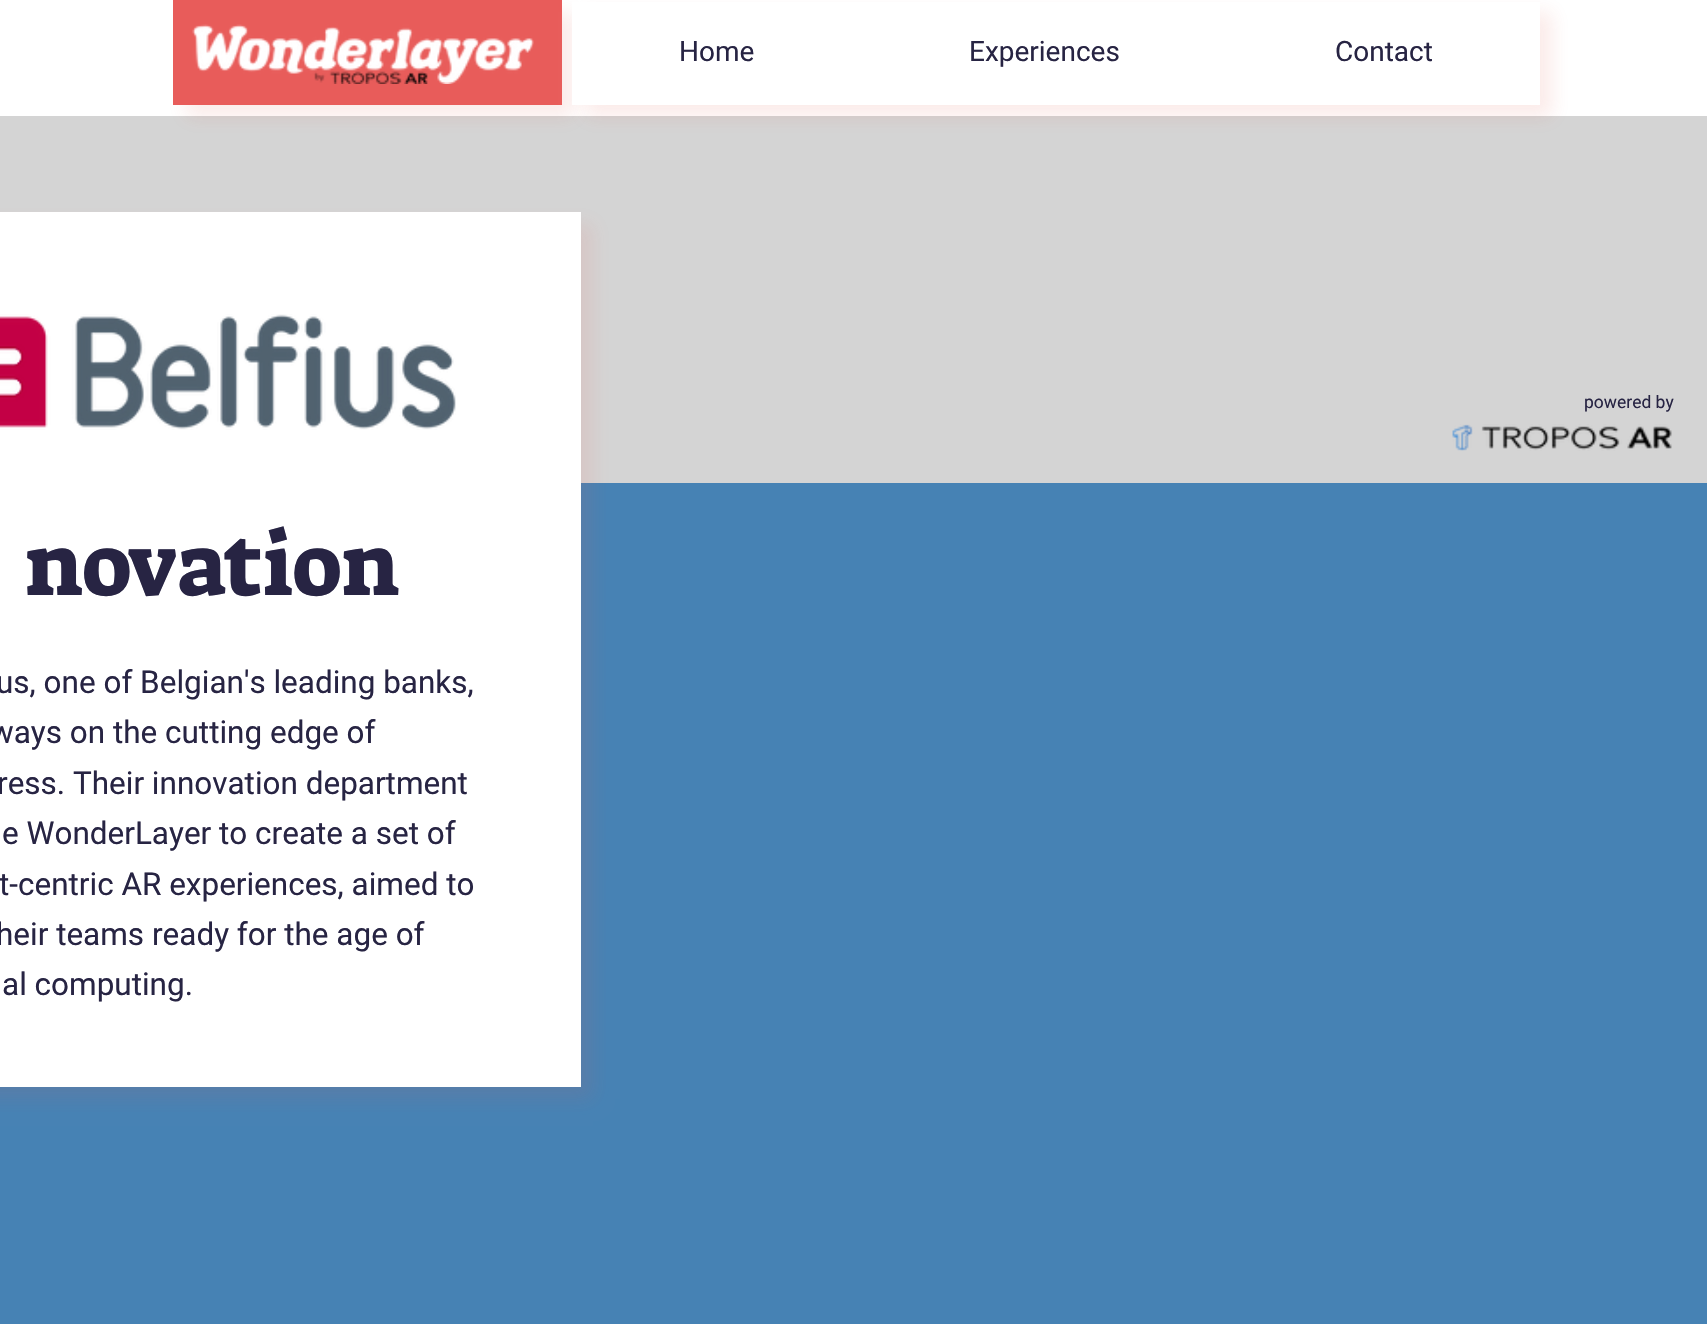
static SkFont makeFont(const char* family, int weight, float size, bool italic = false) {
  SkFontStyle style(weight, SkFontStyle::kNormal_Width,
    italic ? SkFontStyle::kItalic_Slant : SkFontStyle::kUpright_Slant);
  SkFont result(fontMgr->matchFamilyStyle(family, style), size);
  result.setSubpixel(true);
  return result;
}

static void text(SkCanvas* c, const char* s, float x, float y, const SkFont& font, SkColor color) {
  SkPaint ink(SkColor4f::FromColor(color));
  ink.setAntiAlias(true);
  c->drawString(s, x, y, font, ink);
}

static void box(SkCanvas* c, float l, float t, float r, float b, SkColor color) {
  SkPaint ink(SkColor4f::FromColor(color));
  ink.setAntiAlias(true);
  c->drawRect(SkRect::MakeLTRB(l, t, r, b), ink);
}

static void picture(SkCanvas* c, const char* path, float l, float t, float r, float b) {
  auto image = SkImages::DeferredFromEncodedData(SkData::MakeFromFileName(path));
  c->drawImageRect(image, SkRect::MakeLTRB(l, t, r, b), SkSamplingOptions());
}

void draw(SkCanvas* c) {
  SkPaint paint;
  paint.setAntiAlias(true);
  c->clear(0xffd4d4d4);
  box(c, 0, 0, 1707, 116, 0xffffffff);
  paint.setColor(0x1ada392b);
  paint.setMaskFilter(SkMaskFilter::MakeBlur(kNormal_SkBlurStyle, 9));
  c->drawRect(SkRect::MakeLTRB(186, 12, 574, 117), paint);
  paint.setMaskFilter(nullptr);
  box(c, 173, 0, 562, 105, 0xffe85c5a);
  picture(c, "img_01.png", 192, 24, 534, 84);
  paint.setMaskFilter(SkMaskFilter::MakeBlur(kNormal_SkBlurStyle, 9));
  c->drawRect(SkRect::MakeLTRB(585, 12, 1552, 117), paint);
  paint.setMaskFilter(nullptr);
  box(c, 572, 2, 1540, 105, 0xffffffff);
  SkFont face1 = makeFont("Roboto", 400, 28);
  text(c, "Home", 679, 61, face1, 0xff272443);
  text(c, "Experiences", 969, 61, face1, 0xff272443);
  text(c, "Contact", 1335, 61, face1, 0xff272443);
  SkFont face2 = makeFont("Roboto", 400, 17.5f);
  text(c, "powered by", 1584, 408, face2, 0xff272443);
  picture(c, "img_02.png", 1452, 424, 1672, 451);
  box(c, 0, 483, 1707, 1324, 0xff4682b4);
  paint.setColor(0x1aed4b40);
  paint.setMaskFilter(SkMaskFilter::MakeBlur(kNormal_SkBlurStyle, 9));
  c->drawRect(SkRect::MakeLTRB(-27, 224, 593, 1099), paint);
  paint.setMaskFilter(nullptr);
  box(c, 0, 212, 581, 1087, 0xffffffff);
  picture(c, "img_03.png", 0, 314, 456, 430);
  SkFont face3 = makeFont("Suez One", 400, 87.5f);
  text(c, "novation", 25, 595, face3, 0xff272443);
  SkFont face4 = makeFont("Roboto", 400, 31.5f);
  text(c, "us, one of Belgian's leading banks,", -4, 693, face4, 0xff272443);
  text(c, "ways on the cutting edge of", -10, 743, face4, 0xff272443);
  text(c, "ress. Their innovation department", -3, 794, face4, 0xff272443);
  text(c, "e WonderLayer to create a set of", 2, 844, face4, 0xff272443);
  text(c, "t-centric AR experiences, aimed to", -1, 895, face4, 0xff272443);
  text(c, "heir teams ready for the age of", -4, 945, face4, 0xff272443);
  text(c, "al computing.", 2, 995, face4, 0xff272443);
}
